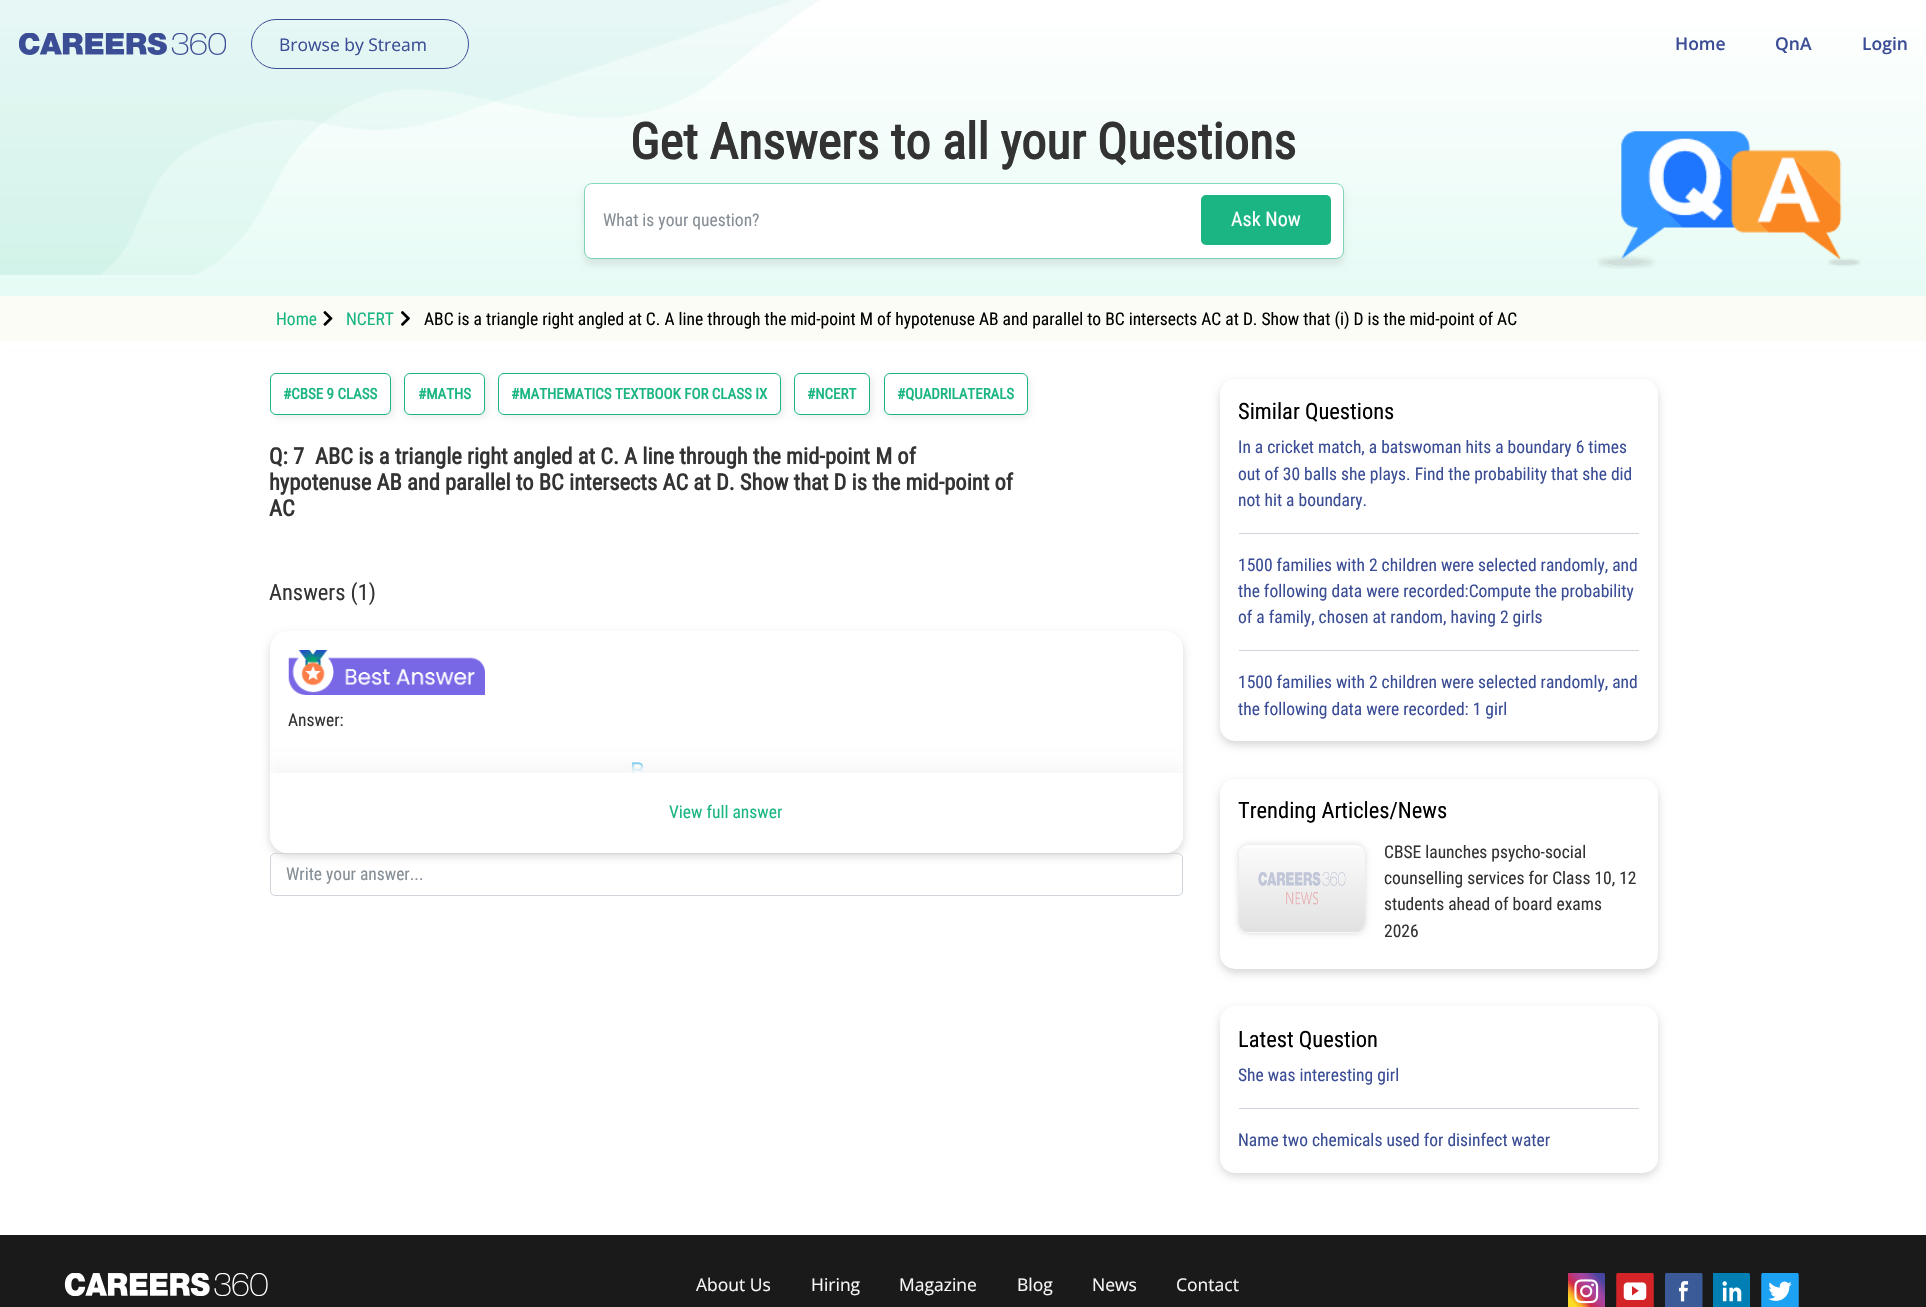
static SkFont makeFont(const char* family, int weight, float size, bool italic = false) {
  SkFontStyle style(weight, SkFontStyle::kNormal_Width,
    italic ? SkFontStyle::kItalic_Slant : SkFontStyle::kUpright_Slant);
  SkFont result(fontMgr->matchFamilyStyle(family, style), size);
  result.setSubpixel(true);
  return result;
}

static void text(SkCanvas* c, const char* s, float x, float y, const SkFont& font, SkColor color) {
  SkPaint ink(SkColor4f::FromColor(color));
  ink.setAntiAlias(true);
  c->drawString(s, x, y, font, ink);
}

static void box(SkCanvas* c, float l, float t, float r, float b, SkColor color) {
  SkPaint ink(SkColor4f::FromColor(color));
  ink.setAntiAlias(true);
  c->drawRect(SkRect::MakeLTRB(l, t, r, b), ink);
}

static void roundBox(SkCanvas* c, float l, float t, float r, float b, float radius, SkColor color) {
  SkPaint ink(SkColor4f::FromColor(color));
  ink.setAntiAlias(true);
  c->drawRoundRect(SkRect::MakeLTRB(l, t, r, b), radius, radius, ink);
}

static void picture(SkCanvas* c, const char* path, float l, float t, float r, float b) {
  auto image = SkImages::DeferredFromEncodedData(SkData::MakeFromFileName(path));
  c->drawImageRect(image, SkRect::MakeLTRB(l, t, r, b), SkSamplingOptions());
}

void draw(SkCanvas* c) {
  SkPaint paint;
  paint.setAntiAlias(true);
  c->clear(0xffffffff);
  paint.setColor(0x80cdd4db);
  paint.setMaskFilter(SkMaskFilter::MakeBlur(kNormal_SkBlurStyle, 4));
  c->drawRect(SkRect::MakeLTRB(0, 300, 1926, 345), paint);
  paint.setMaskFilter(nullptr);
  {
    const SkColor colors[] = {0xffe6fbf5, 0x00e6fbf5};
    const float stops[] = {0, 1};
    const SkPoint ends[] = {{963, 296}, {963, 0}};
    paint.setShader(SkGradientShader::MakeLinear(ends, colors, stops, 2, SkTileMode::kClamp));
    paint.setAlpha(255);
  }
  c->drawRect(SkRect::MakeLTRB(0, 27, 1926, 296), paint);
  SkFont face1 = makeFont("Roboto Condensed", 700, 50);
  text(c, "Get Answers to all your Questions", 630, 159, face1, 0xff333333);
  picture(c, "img_02.png", 0, 0, 820, 275);
  picture(c, "img_01.png", 19, 33, 226, 55);
  paint.setStyle(SkPaint::kStroke_Style);
  paint.setStrokeWidth(1);
  paint.setShader(nullptr);
  paint.setColor(0xff3a4d95);
  c->drawRoundRect(SkRect::MakeLTRB(251.5f, 19.5f, 468.5f, 68.5f), 24.5f, 24.5f, paint);
  SkFont face2 = makeFont("Open Sans", 400, 17.5f);
  text(c, "Browse by Stream", 279, 51, face2, 0xff3a4d95);
  SkFont face3 = makeFont("Open Sans", 600, 17.5f);
  text(c, "Home", 1675, 50, face3, 0xff3a4d95);
  text(c, "QnA", 1775, 50, face3, 0xff3a4d95);
  text(c, "Login", 1862, 50, face3, 0xff3a4d95);
  picture(c, "img_03.png", 1597, 131, 1861, 269);
  paint.setStyle(SkPaint::kFill_Style);
  paint.setColor(0x14000000);
  paint.setMaskFilter(SkMaskFilter::MakeBlur(kNormal_SkBlurStyle, 3));
  c->drawRoundRect(SkRect::MakeLTRB(584, 189, 1344, 265), 8, 8, paint);
  paint.setMaskFilter(nullptr);
  roundBox(c, 585, 184, 1343, 258, 6, 0xffffffff);
  paint.setStyle(SkPaint::kStroke_Style);
  paint.setColor(0x801ab583);
  c->drawRoundRect(SkRect::MakeLTRB(584.5f, 183.5f, 1343.5f, 258.5f), 7.5f, 7.5f, paint);
  SkFont face4 = makeFont("Roboto Condensed", 400, 17.5f);
  text(c, "What is your question?", 603, 226, face4, 0xff868e96);
  roundBox(c, 1201, 195, 1331, 245, 5, 0xff1ab583);
  SkFont face5 = makeFont("Roboto Condensed", 400, 20);
  text(c, "Ask Now", 1231, 226, face5, 0xffffffff);
  box(c, 0, 296, 1926, 341, 0xfffbfcf5);
  text(c, "Home", 276, 325, face4, 0xff1ab583);
  picture(c, "img_04.png", 323, 311, 333, 326);
  text(c, "NCERT", 346, 325, face4, 0xff1ab583);
  picture(c, "img_05.png", 401, 311, 410, 326);
  text(c, "ABC is a triangle right angled at C. A line through the mid-point M of hypotenuse AB and parallel to BC intersects AC at D. Show that (i) D is the mid-point of AC", 424, 325, face4, 0xff000000);
  box(c, 0, 341, 1926, 350, 0xffffffff);
  c->save();
  c->clipRect(SkRect::MakeLTRB(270, 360, 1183, 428));
  paint.setStyle(SkPaint::kFill_Style);
  paint.setColor(0xffeeeeee);
  paint.setMaskFilter(SkMaskFilter::MakeBlur(kNormal_SkBlurStyle, 3));
  c->drawRoundRect(SkRect::MakeLTRB(273, 375, 394, 418), 6, 6, paint);
  paint.setMaskFilter(nullptr);
  c->restore();
  paint.setColor(0xffffffff);
  c->drawRoundRect(SkRect::MakeLTRB(270.5f, 373.5f, 390.5f, 414.5f), 5.5f, 5.5f, paint);
  paint.setStyle(SkPaint::kStroke_Style);
  paint.setColor(0xff1ab583);
  c->drawRoundRect(SkRect::MakeLTRB(270.5f, 373.5f, 390.5f, 414.5f), 5.5f, 5.5f, paint);
  SkFont face6 = makeFont("Roboto Condensed", 700, 15);
  text(c, "#CBSE 9 CLASS", 283, 399, face6, 0xff1ab583);
  paint.setStyle(SkPaint::kFill_Style);
  paint.setColor(0xffeeeeee);
  paint.setMaskFilter(SkMaskFilter::MakeBlur(kNormal_SkBlurStyle, 3));
  c->drawRoundRect(SkRect::MakeLTRB(406, 375, 488, 418), 6, 6, paint);
  paint.setMaskFilter(nullptr);
  paint.setColor(0xffffffff);
  c->drawRoundRect(SkRect::MakeLTRB(404.5f, 373.5f, 484.5f, 414.5f), 5.5f, 5.5f, paint);
  paint.setStyle(SkPaint::kStroke_Style);
  paint.setColor(0xff1ab583);
  c->drawRoundRect(SkRect::MakeLTRB(404.5f, 373.5f, 484.5f, 414.5f), 5.5f, 5.5f, paint);
  text(c, "#MATHS", 418, 399, face6, 0xff1ab583);
  paint.setStyle(SkPaint::kFill_Style);
  paint.setColor(0xffeeeeee);
  paint.setMaskFilter(SkMaskFilter::MakeBlur(kNormal_SkBlurStyle, 3));
  c->drawRoundRect(SkRect::MakeLTRB(500, 375, 784, 418), 6, 6, paint);
  paint.setMaskFilter(nullptr);
  paint.setColor(0xffffffff);
  c->drawRoundRect(SkRect::MakeLTRB(498.5f, 373.5f, 780.5f, 414.5f), 5.5f, 5.5f, paint);
  paint.setStyle(SkPaint::kStroke_Style);
  paint.setColor(0xff1ab583);
  c->drawRoundRect(SkRect::MakeLTRB(498.5f, 373.5f, 780.5f, 414.5f), 5.5f, 5.5f, paint);
  text(c, "#MATHEMATICS TEXTBOOK FOR CLASS IX", 511, 399, face6, 0xff1ab583);
  paint.setStyle(SkPaint::kFill_Style);
  paint.setColor(0xffeeeeee);
  paint.setMaskFilter(SkMaskFilter::MakeBlur(kNormal_SkBlurStyle, 3));
  c->drawRoundRect(SkRect::MakeLTRB(796, 375, 873, 418), 6, 6, paint);
  paint.setMaskFilter(nullptr);
  paint.setColor(0xffffffff);
  c->drawRoundRect(SkRect::MakeLTRB(794.5f, 373.5f, 869.5f, 414.5f), 5.5f, 5.5f, paint);
  paint.setStyle(SkPaint::kStroke_Style);
  paint.setColor(0xff1ab583);
  c->drawRoundRect(SkRect::MakeLTRB(794.5f, 373.5f, 869.5f, 414.5f), 5.5f, 5.5f, paint);
  text(c, "#NCERT", 807, 399, face6, 0xff1ab583);
  paint.setStyle(SkPaint::kFill_Style);
  paint.setColor(0xffeeeeee);
  paint.setMaskFilter(SkMaskFilter::MakeBlur(kNormal_SkBlurStyle, 3));
  c->drawRoundRect(SkRect::MakeLTRB(886, 375, 1030, 418), 6, 6, paint);
  paint.setMaskFilter(nullptr);
  paint.setColor(0xffffffff);
  c->drawRoundRect(SkRect::MakeLTRB(884.5f, 373.5f, 1027.5f, 414.5f), 5.5f, 5.5f, paint);
  paint.setStyle(SkPaint::kStroke_Style);
  paint.setColor(0xff1ab583);
  c->drawRoundRect(SkRect::MakeLTRB(884.5f, 373.5f, 1027.5f, 414.5f), 5.5f, 5.5f, paint);
  text(c, "#QUADRILATERALS", 897, 399, face6, 0xff1ab583);
  SkFont face7 = makeFont("Roboto Condensed", 700, 22.5f);
  text(c, "Q: 7", 269, 464, face7, 0xff333333);
  text(c, "ABC is a triangle right angled at C. A line through the mid-point M of", 315, 464, face7, 0xff333333);
  text(c, "hypotenuse AB and parallel to BC intersects AC at D. Show that D is the mid-point of", 269, 490, face7, 0xff333333);
  text(c, "AC", 269, 516, face7, 0xff333333);
  SkFont face8 = makeFont("Roboto Condensed", 400, 22.5f);
  text(c, "Answers (1)", 269, 600, face8, 0xff333333);
  paint.setColor(0xffced4da);
  c->drawRoundRect(SkRect::MakeLTRB(270.5f, 853.5f, 1182.5f, 895.5f), 4.5f, 4.5f, paint);
  paint.setStyle(SkPaint::kFill_Style);
  paint.setColor(0xffd7d7d7);
  paint.setMaskFilter(SkMaskFilter::MakeBlur(kNormal_SkBlurStyle, 4));
  c->drawRoundRect(SkRect::MakeLTRB(270, 635, 1183, 856), 18, 18, paint);
  paint.setMaskFilter(nullptr);
  roundBox(c, 270, 631, 1183, 853, 18, 0xffffffff);
  picture(c, "img_06.png", 288, 650, 485, 695);
  text(c, "Answer:", 288, 726, face4, 0xff333333);
  picture(c, "img_07.png", 631, 762, 644, 773);
  c->save();
  c->clipPath(SkPathBuilder().moveTo(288, 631).lineTo(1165, 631).cubicTo(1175, 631, 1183, 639, 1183, 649).lineTo(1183, 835).cubicTo(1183, 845, 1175, 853, 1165, 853).lineTo(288, 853).cubicTo(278, 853, 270, 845, 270, 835).lineTo(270, 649).cubicTo(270, 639, 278, 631, 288, 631).close().detach(), true);
  paint.setColor(0xfff9f8f8);
  paint.setMaskFilter(SkMaskFilter::MakeBlur(kNormal_SkBlurStyle, 5.5f));
  c->drawRect(SkRect::MakeLTRB(270, 763, 1183, 843), paint);
  paint.setMaskFilter(nullptr);
  c->restore();
  paint.setColor(0xffffffff);
  c->drawPath(SkPathBuilder().moveTo(270, 773).lineTo(1183, 773).lineTo(1183, 835).cubicTo(1183, 845, 1175, 853, 1165, 853).lineTo(288, 853).cubicTo(278, 853, 270, 845, 270, 835).close().detach(), paint);
  text(c, "View full answer", 669, 818, face4, 0xff1ab583);
  text(c, "Write your answer...", 286, 880, face4, 0xff868e96);
  paint.setColor(0xffd7d7d7);
  paint.setMaskFilter(SkMaskFilter::MakeBlur(kNormal_SkBlurStyle, 4));
  c->drawRoundRect(SkRect::MakeLTRB(1220, 383, 1658, 745), 15, 15, paint);
  paint.setMaskFilter(nullptr);
  roundBox(c, 1220, 379, 1658, 741, 15, 0xffffffff);
  text(c, "Similar Questions", 1238, 419, face8, 0xff000000);
  box(c, 1239, 533, 1639, 534, 0xffcdd4db);
  text(c, "In a cricket match, a batswoman hits a boundary 6 times", 1238, 453, face4, 0xff3a4d95);
  text(c, "out of 30 balls she plays. Find the probability that she did", 1238, 480, face4, 0xff3a4d95);
  text(c, "not hit a boundary.", 1238, 506, face4, 0xff3a4d95);
  box(c, 1239, 650, 1639, 651, 0xffcdd4db);
  text(c, "1500 families with 2 children were selected randomly, and", 1238, 571, face4, 0xff3a4d95);
  text(c, "the following data were recorded:Compute the probability", 1238, 597, face4, 0xff3a4d95);
  text(c, "of a family, chosen at random, having 2 girls", 1238, 623, face4, 0xff3a4d95);
  text(c, "1500 families with 2 children were selected randomly, and", 1238, 688, face4, 0xff3a4d95);
  text(c, "the following data were recorded: 1 girl", 1238, 715, face4, 0xff3a4d95);
  paint.setMaskFilter(SkMaskFilter::MakeBlur(kNormal_SkBlurStyle, 4));
  c->drawRoundRect(SkRect::MakeLTRB(1220, 783, 1658, 973), 15, 15, paint);
  paint.setMaskFilter(nullptr);
  roundBox(c, 1220, 779, 1658, 969, 15, 0xffffffff);
  text(c, "Trending Articles/News", 1238, 818, face8, 0xff000000);
  c->save();
  c->clipPath(SkPathBuilder(SkPathFillType::kEvenOdd).moveTo(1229, 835).lineTo(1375, 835).lineTo(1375, 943).lineTo(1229, 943).close().moveTo(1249, 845).lineTo(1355, 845).cubicTo(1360.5f, 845, 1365, 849.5f, 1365, 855).lineTo(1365, 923).cubicTo(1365, 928.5f, 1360.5f, 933, 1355, 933).lineTo(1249, 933).cubicTo(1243.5f, 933, 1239, 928.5f, 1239, 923).lineTo(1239, 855).cubicTo(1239, 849.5f, 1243.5f, 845, 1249, 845).close().detach(), true);
  paint.setMaskFilter(SkMaskFilter::MakeBlur(kNormal_SkBlurStyle, 3));
  c->drawRoundRect(SkRect::MakeLTRB(1239, 845, 1365, 933), 10, 10, paint);
  paint.setMaskFilter(nullptr);
  c->restore();
  picture(c, "img_08.png", 1239, 848, 1365, 933);
  text(c, "CBSE launches psycho-social", 1384, 858, face4, 0xff333333);
  text(c, "counselling services for Class 10, 12", 1384, 884, face4, 0xff333333);
  text(c, "students ahead of board exams", 1384, 910, face4, 0xff333333);
  text(c, "2026", 1384, 937, face4, 0xff333333);
  paint.setMaskFilter(SkMaskFilter::MakeBlur(kNormal_SkBlurStyle, 4));
  c->drawRoundRect(SkRect::MakeLTRB(1220, 1010, 1658, 1176), 15, 15, paint);
  paint.setMaskFilter(nullptr);
  roundBox(c, 1220, 1006, 1658, 1173, 15, 0xffffffff);
  text(c, "Latest Question", 1238, 1047, face8, 0xff000000);
  box(c, 1239, 1108, 1639, 1109, 0xffcdd4db);
  text(c, "She was interesting girl", 1238, 1081, face4, 0xff3a4d95);
  text(c, "Name two chemicals used for disinfect water", 1238, 1146, face4, 0xff3a4d95);
  box(c, 0, 1235, 1926, 1307, 0xff1a1a1a);
  picture(c, "img_09.png", 64, 1273, 268, 1296);
  text(c, "About Us", 696, 1291, face2, 0xfff7f7f7);
  text(c, "Hiring", 811, 1291, face2, 0xfff7f7f7);
  text(c, "Magazine", 899, 1291, face2, 0xfff7f7f7);
  text(c, "Blog", 1017, 1291, face2, 0xfff7f7f7);
  text(c, "News", 1092, 1291, face2, 0xfff7f7f7);
  text(c, "Contact", 1176, 1291, face2, 0xfff7f7f7);
  picture(c, "img_10.png", 1568, 1273, 1605, 1307);
  picture(c, "img_11.png", 1616, 1273, 1654, 1307);
  picture(c, "img_12.png", 1665, 1273, 1703, 1307);
  picture(c, "img_13.png", 1713, 1273, 1750, 1307);
  picture(c, "img_14.png", 1761, 1273, 1799, 1307);
}
